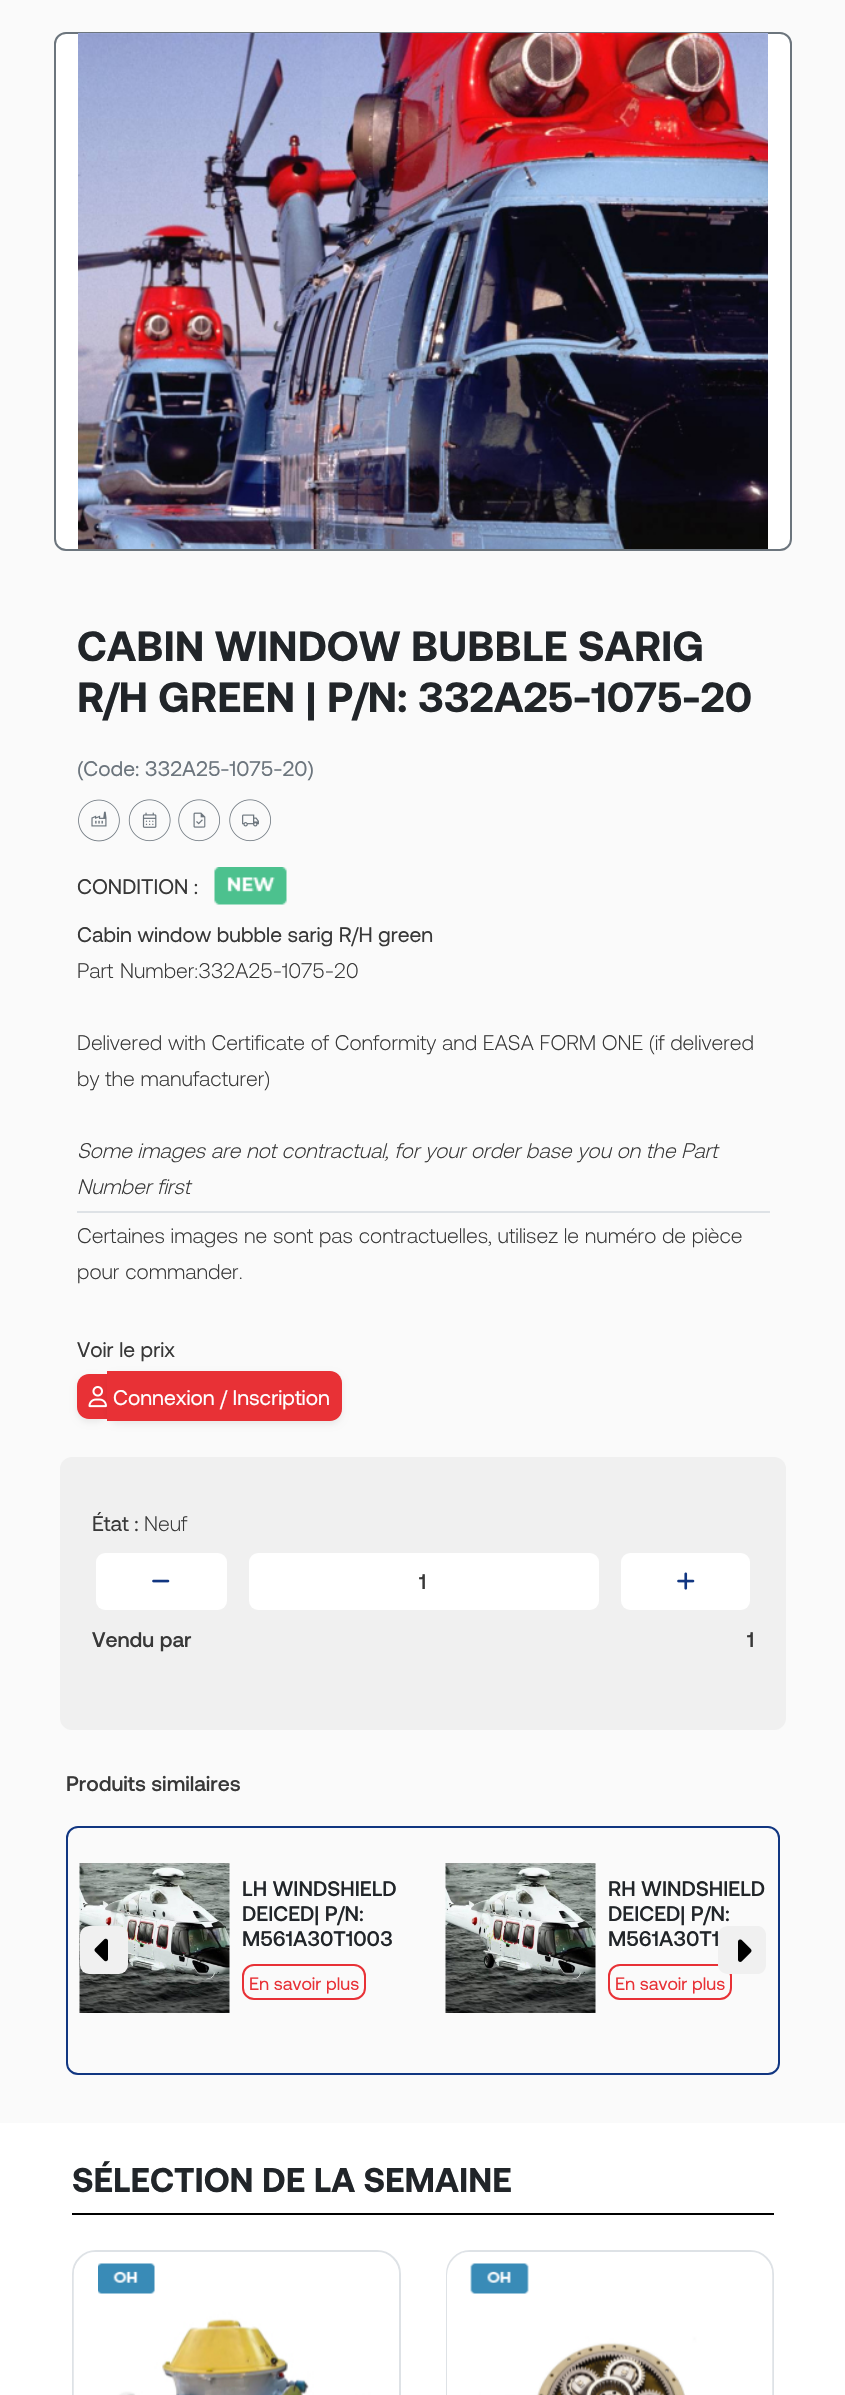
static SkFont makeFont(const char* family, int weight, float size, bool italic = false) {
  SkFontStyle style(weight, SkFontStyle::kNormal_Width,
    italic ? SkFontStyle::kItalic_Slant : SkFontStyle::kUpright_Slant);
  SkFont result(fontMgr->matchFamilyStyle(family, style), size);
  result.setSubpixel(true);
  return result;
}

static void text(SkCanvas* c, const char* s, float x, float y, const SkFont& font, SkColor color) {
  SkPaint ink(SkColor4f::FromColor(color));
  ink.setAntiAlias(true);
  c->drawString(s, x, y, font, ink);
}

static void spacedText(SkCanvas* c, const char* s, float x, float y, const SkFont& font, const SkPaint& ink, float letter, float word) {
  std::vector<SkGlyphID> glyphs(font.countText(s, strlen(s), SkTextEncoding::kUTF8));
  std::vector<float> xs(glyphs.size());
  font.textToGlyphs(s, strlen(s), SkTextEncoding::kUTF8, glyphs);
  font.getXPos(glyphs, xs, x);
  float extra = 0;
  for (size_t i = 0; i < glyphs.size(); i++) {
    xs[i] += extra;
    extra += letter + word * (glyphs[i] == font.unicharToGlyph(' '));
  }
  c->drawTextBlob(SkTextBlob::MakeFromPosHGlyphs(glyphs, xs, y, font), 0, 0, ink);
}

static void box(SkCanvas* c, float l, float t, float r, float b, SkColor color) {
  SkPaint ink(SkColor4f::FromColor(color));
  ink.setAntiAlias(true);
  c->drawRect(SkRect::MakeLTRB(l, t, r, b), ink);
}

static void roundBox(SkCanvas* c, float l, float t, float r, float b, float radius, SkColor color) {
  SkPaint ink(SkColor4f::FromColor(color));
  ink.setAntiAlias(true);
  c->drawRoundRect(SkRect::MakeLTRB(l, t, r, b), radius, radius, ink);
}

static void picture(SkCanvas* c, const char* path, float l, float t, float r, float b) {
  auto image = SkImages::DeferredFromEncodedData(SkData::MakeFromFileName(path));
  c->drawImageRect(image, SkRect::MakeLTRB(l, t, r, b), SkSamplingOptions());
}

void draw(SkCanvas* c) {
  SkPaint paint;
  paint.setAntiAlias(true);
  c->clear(0xffffffff);
  box(c, 0, 0, 845, 2123, 0xfffafafa);
  paint.setColor(0xffffffff);
  c->drawRoundRect(SkRect::MakeLTRB(55, 33, 791, 550), 11, 11, paint);
  paint.setStyle(SkPaint::kStroke_Style);
  paint.setStrokeWidth(2);
  paint.setColor(0xff6c757d);
  c->drawRoundRect(SkRect::MakeLTRB(55, 33, 791, 550), 11, 11, paint);
  picture(c, "img_01.png", 78, 33, 768, 549);
  SkFont face1 = makeFont("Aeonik", 700, 42.25f);
  text(c, "CABIN WINDOW BUBBLE SARIG", 77, 661, face1, 0xff212529);
  text(c, "R/H GREEN | P/N: 332A25-1075-20", 77, 712, face1, 0xff212529);
  SkFont face2 = makeFont("Aeonik", 400, 21.1f);
  text(c, "(Code: 332A25-1075-20)", 77, 776, face2, 0xff6c757d);
  picture(c, "img_02.png", 78, 799, 120, 842);
  picture(c, "img_03.png", 128, 799, 171, 842);
  picture(c, "img_04.png", 178, 799, 220, 842);
  picture(c, "img_05.png", 229, 799, 271, 842);
  text(c, "CONDITION :", 77, 894, face2, 0xff383838);
  picture(c, "img_06.png", 214, 867, 287, 905);
  box(c, 77, 1211, 770, 1213, 0xffdee2e6);
  text(c, "Cabin window bubble sarig R/H green", 77, 942, face2, 0xff383838);
  SkFont face3 = makeFont("Aeonik", 300, 21.1f);
  paint.setStyle(SkPaint::kFill_Style);
  paint.setColor(0xff383838);
  spacedText(c, "Part Number:332A25-1075-20", 77, 978, face3, paint, 0, 1);
  text(c, "Delivered with Certificate of Conformity and EASA FORM ONE (if delivered", 77, 1050, face3, 0xff383838);
  text(c, "by the manufacturer)", 77, 1086, face3, 0xff383838);
  SkFont face4 = makeFont("Aeonik", 300, 21.1f, true);
  text(c, "Some images are not contractual, for your order base you on the Part", 77, 1158, face4, 0xff383838);
  text(c, "Number first", 77, 1194, face4, 0xff383838);
  text(c, "Certaines images ne sont pas contractuelles, utilisez le numéro de pièce", 77, 1243, face3, 0xff383838);
  text(c, "pour commander.", 77, 1279, face3, 0xff383838);
  text(c, "Voir le prix", 77, 1357, face2, 0xff383838);
  paint.setColor(0x12000000);
  paint.setMaskFilter(SkMaskFilter::MakeBlur(kNormal_SkBlurStyle, 3));
  c->drawRoundRect(SkRect::MakeLTRB(77, 1377, 107, 1422), 12, 12, paint);
  paint.setMaskFilter(nullptr);
  paint.setColor(0xffe83136);
  c->drawPath(SkPathBuilder().moveTo(89, 1374).lineTo(107, 1374).lineTo(107, 1419).lineTo(89, 1419).cubicTo(82.5f, 1419, 77, 1413.5f, 77, 1407).lineTo(77, 1386).cubicTo(77, 1379.5f, 82.5f, 1374, 89, 1374).close().detach(), paint);
  paint.setColor(0x12000000);
  paint.setMaskFilter(SkMaskFilter::MakeBlur(kNormal_SkBlurStyle, 3));
  c->drawRoundRect(SkRect::MakeLTRB(107, 1374, 342, 1424), 12, 12, paint);
  paint.setMaskFilter(nullptr);
  paint.setColor(0xffe83136);
  c->drawPath(SkPathBuilder().moveTo(107, 1371).lineTo(330, 1371).cubicTo(336.5f, 1371, 342, 1376.5f, 342, 1383).lineTo(342, 1409).cubicTo(342, 1415.5f, 336.5f, 1421, 330, 1421).lineTo(107, 1421).close().detach(), paint);
  picture(c, "img_07.png", 88, 1386, 107, 1408);
  text(c, "Connexion / Inscription", 113, 1405, face2, 0xffffffff);
  roundBox(c, 60, 1457, 786, 1730, 12, 0xfff0f0f0);
  text(c, "État :", 92, 1531, face2, 0xff383838);
  text(c, "Neuf", 144, 1531, face3, 0xff383838);
  roundBox(c, 96, 1553, 227, 1610, 9, 0xffffffff);
  picture(c, "img_08.png", 152, 1579, 170, 1583);
  roundBox(c, 249, 1553, 599, 1610, 9, 0xffffffff);
  SkFont face5 = makeFont("Aeonik", 500, 21.1f);
  text(c, "1", 419, 1589, face5, 0xff383838);
  roundBox(c, 621, 1553, 750, 1610, 9, 0xffffffff);
  picture(c, "img_09.png", 677, 1572, 695, 1590);
  text(c, "Vendu par", 92, 1647, face5, 0xff383838);
  text(c, "1", 747, 1647, face5, 0xff383838);
  text(c, "Produits similaires", 66, 1791, face5, 0xff383838);
  paint.setStyle(SkPaint::kStroke_Style);
  paint.setColor(0xff113681);
  c->drawRoundRect(SkRect::MakeLTRB(67, 1827, 779, 2074), 11, 11, paint);
  picture(c, "img_11.png", 79, 1863, 230, 2013);
  roundBox(c, 80, 1926, 128, 1974, 9, 0xfff0f0f0);
  picture(c, "img_10.png", 94, 1938, 108, 1962);
  text(c, "LH WINDSHIELD", 242, 1896, face5, 0xff212529);
  text(c, "DEICED| P/N:", 242, 1921, face5, 0xff212529);
  text(c, "M561A30T1003", 242, 1946, face5, 0xff212529);
  paint.setColor(0xffe83136);
  c->drawRoundRect(SkRect::MakeLTRB(243, 1965, 365, 1999), 11, 11, paint);
  SkFont face6 = makeFont("Aeonik", 400, 18);
  text(c, "En savoir plus", 249, 1990, face6, 0xffe83136);
  picture(c, "img_11.png", 445, 1863, 596, 2013);
  text(c, "RH WINDSHIELD", 608, 1896, face5, 0xff212529);
  text(c, "DEICED| P/N:", 608, 1921, face5, 0xff212529);
  text(c, "M561A30T1", 608, 1946, face5, 0xff212529);
  c->drawRoundRect(SkRect::MakeLTRB(609, 1965, 731, 1999), 11, 11, paint);
  text(c, "En savoir plus", 615, 1990, face6, 0xffe83136);
  paint.setStyle(SkPaint::kFill_Style);
  paint.setColor(0xfff0f0f0);
  c->drawPath(SkPathBuilder().moveTo(758, 1974).lineTo(728, 1974).cubicTo(723, 1974, 718, 1970, 718, 1965).lineTo(718, 1935).cubicTo(718, 1930, 723, 1926, 728, 1926).lineTo(758, 1926).cubicTo(762, 1926, 766, 1930, 766, 1935).lineTo(766, 1965).cubicTo(766, 1970, 762, 1974, 758, 1974).close().detach(), paint);
  picture(c, "img_12.png", 738, 1939, 752, 1962);
  box(c, 72, 2213, 774, 2215, 0xff000000);
  SkFont face7 = makeFont("Aeonik", 700, 34.25f);
  text(c, "SÉLECTION DE LA SEMAINE", 72, 2192, face7, 0xff212529);
  paint.setStyle(SkPaint::kStroke_Style);
  paint.setColor(0xffdee2e6);
  c->drawRoundRect(SkRect::MakeLTRB(73, 2251, 400, 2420), 23, 23, paint);
  picture(c, "img_13.png", 73, 2252, 399, 2395);
  picture(c, "img_14.png", 98, 2263, 155, 2294);
  c->drawRoundRect(SkRect::MakeLTRB(447, 2251, 773, 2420), 23, 23, paint);
  picture(c, "img_15.png", 447, 2252, 773, 2395);
  picture(c, "img_16.png", 470, 2263, 529, 2294);
}
